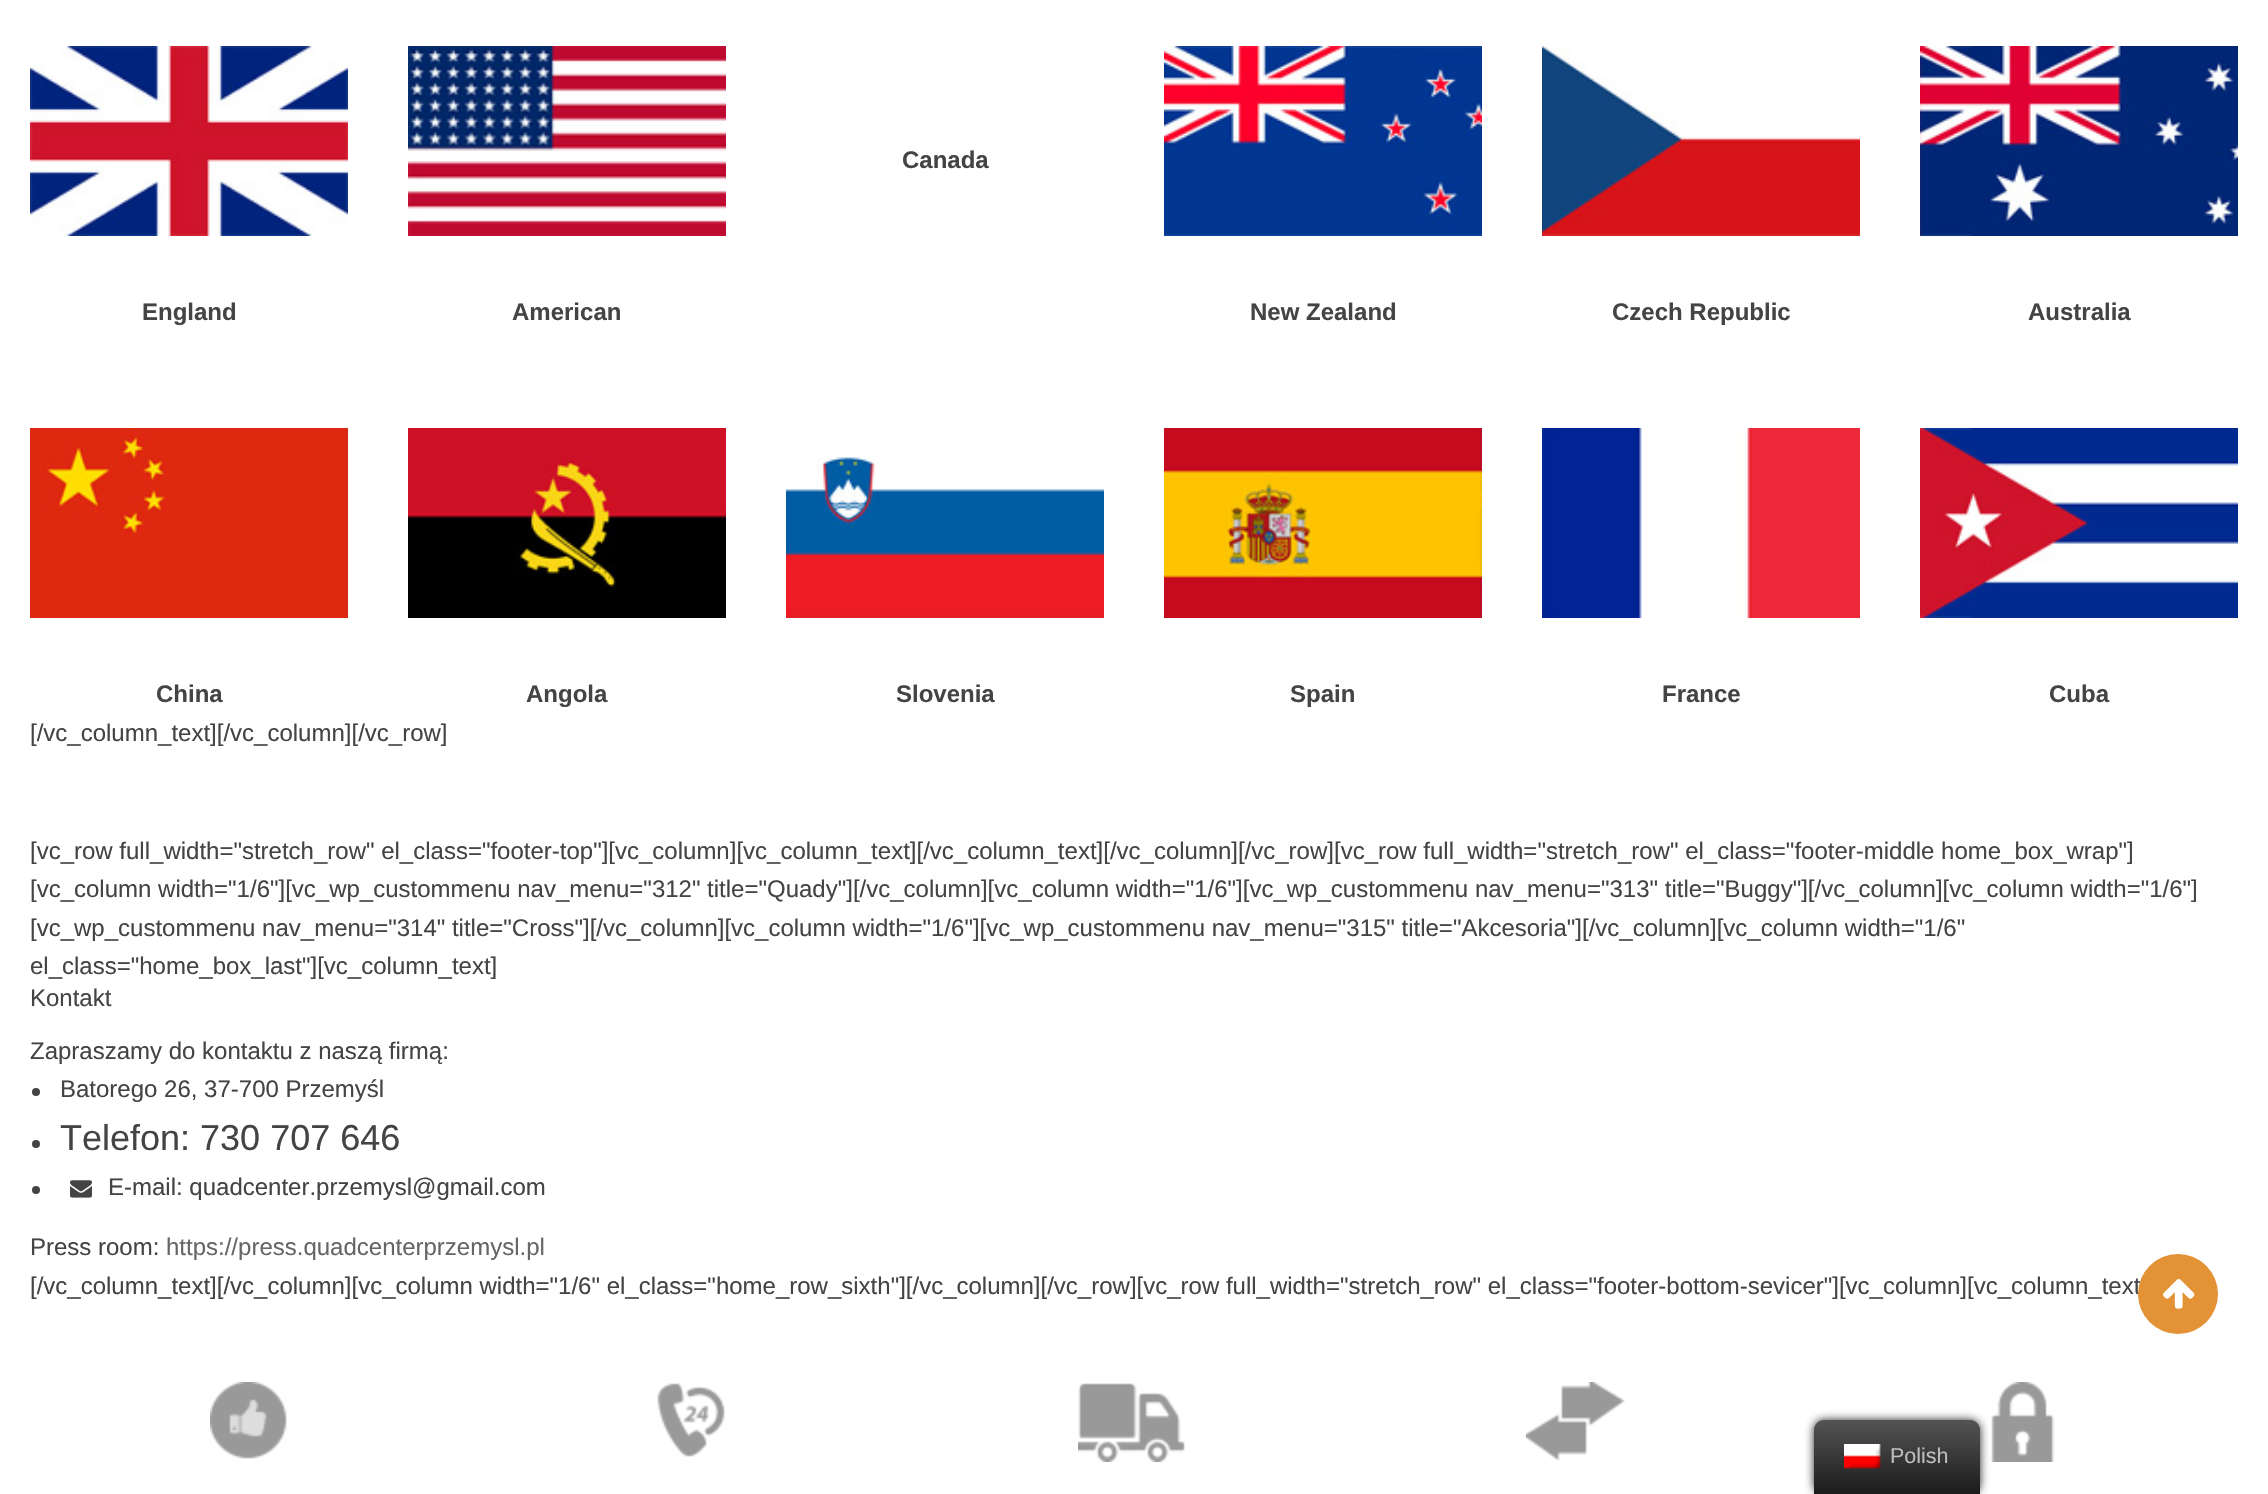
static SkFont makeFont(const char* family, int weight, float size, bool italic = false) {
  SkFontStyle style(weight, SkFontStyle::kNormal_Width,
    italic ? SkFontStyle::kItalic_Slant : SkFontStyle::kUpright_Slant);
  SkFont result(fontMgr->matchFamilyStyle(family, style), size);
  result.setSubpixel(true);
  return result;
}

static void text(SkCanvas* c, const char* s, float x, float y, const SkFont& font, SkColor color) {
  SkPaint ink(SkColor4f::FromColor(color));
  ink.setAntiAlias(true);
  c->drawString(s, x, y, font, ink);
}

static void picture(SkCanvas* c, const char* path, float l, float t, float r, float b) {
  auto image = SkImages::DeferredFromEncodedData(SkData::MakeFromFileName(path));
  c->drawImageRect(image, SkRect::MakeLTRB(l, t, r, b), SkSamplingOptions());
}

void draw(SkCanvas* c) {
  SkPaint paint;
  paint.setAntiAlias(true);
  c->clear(0xffffffff);
  SkFont face1 = makeFont("Liberation Sans", 700, 24);
  text(c, "Canada", 902, 168, face1, 0xff444444);
  picture(c, "img_01.png", 30, 46, 348, 236);
  text(c, "England", 142, 320, face1, 0xff444444);
  picture(c, "img_02.png", 408, 46, 726, 236);
  text(c, "American", 512, 320, face1, 0xff444444);
  picture(c, "img_03.png", 1164, 46, 1482, 236);
  text(c, "New Zealand", 1250, 320, face1, 0xff444444);
  picture(c, "img_04.png", 1542, 46, 1860, 236);
  text(c, "Czech Republic", 1612, 320, face1, 0xff444444);
  picture(c, "img_05.png", 1920, 46, 2238, 236);
  text(c, "Australia", 2028, 320, face1, 0xff444444);
  picture(c, "img_06.png", 30, 428, 348, 618);
  text(c, "China", 156, 702, face1, 0xff444444);
  picture(c, "img_07.png", 408, 428, 726, 618);
  text(c, "Angola", 526, 702, face1, 0xff444444);
  picture(c, "img_08.png", 786, 457, 1104, 618);
  text(c, "Slovenia", 896, 702, face1, 0xff444444);
  picture(c, "img_09.png", 1164, 428, 1482, 618);
  text(c, "Spain", 1290, 702, face1, 0xff444444);
  picture(c, "img_10.png", 1542, 428, 1860, 618);
  text(c, "France", 1662, 702, face1, 0xff444444);
  picture(c, "img_11.png", 1920, 428, 2238, 618);
  text(c, "Cuba", 2049, 702, face1, 0xff444444);
  SkFont face2 = makeFont("Liberation Sans", 400, 24);
  text(c, "[/vc_column_text][/vc_column][/vc_row]", 30, 741, face2, 0xff444444);
  text(c, "[vc_row full_width=\"stretch_row\" el_class=\"footer-top\"][vc_column][vc_column_text][/vc_column_text][/vc_column][/vc_row][vc_row full_width=\"stretch_row\" el_class=\"footer-middle home_box_wrap\"]", 30, 859, face2, 0xff444444);
  text(c, "[vc_column width=\"1/6\"][vc_wp_custommenu nav_menu=\"312\" title=\"Quady\"][/vc_column][vc_column width=\"1/6\"][vc_wp_custommenu nav_menu=\"313\" title=\"Buggy\"][/vc_column][vc_column width=\"1/6\"]", 30, 897, face2, 0xff444444);
  text(c, "[vc_wp_custommenu nav_menu=\"314\" title=\"Cross\"][/vc_column][vc_column width=\"1/6\"][vc_wp_custommenu nav_menu=\"315\" title=\"Akcesoria\"][/vc_column][vc_column width=\"1/6\"", 30, 936, face2, 0xff444444);
  text(c, "el_class=\"home_box_last\"][vc_column_text]", 30, 974, face2, 0xff444444);
  text(c, "Kontakt", 30, 1006, face2, 0xff444444);
  text(c, "Zapraszamy do kontaktu z naszą firmą:", 30, 1059, face2, 0xff444444);
  paint.setColor(0xff444444);
  c->drawCircle(36, 1092, 4, paint);
  text(c, "Batorego 26, 37-700 Przemyśl", 60, 1097, face2, 0xff444444);
  c->drawCircle(36, 1144, 4, paint);
  SkFont face3 = makeFont("Liberation Sans", 400, 36);
  text(c, "Telefon: 730 707 646", 60, 1150, face3, 0xff444444);
  c->drawCircle(36, 1190, 4, paint);
  picture(c, "img_12.png", 70, 1180, 92, 1198);
  text(c, "E-mail: quadcenter.przemysl@gmail.com", 108, 1195, face2, 0xff444444);
  text(c, "Press room:", 30, 1255, face2, 0xff444444);
  text(c, "https://press.quadcenterprzemysl.pl", 166, 1255, face2, 0xff666666);
  text(c, "[/vc_column_text][/vc_column][vc_column width=\"1/6\" el_class=\"home_row_sixth\"][/vc_column][/vc_row][vc_row full_width=\"stretch_row\" el_class=\"footer-bottom-sevicer\"][vc_column][vc_column_text", 30, 1294, face2, 0xff444444);
  picture(c, "img_13.png", 210, 1382, 287, 1459);
  picture(c, "img_14.png", 657, 1383, 725, 1457);
  picture(c, "img_15.png", 1078, 1383, 1185, 1462);
  picture(c, "img_16.png", 1526, 1382, 1625, 1461);
  picture(c, "img_17.png", 1991, 1382, 2055, 1462);
  paint.setColor(0xffe49236);
  c->drawCircle(2178, 1294, 40, paint);
  picture(c, "img_18.png", 2163, 1279, 2195, 1309);
  paint.setColor(0xff212121);
  paint.setMaskFilter(SkMaskFilter::MakeBlur(kNormal_SkBlurStyle, 5));
  c->drawRoundRect(SkRect::MakeLTRB(1814, 1420, 1980, 1494), 10, 10, paint);
  paint.setMaskFilter(nullptr);
  {
    const SkColor colors[] = {0xff1b1b1b, 0xff545454};
    const float stops[] = {0, 1};
    const SkPoint ends[] = {{1897, 1494}, {1897, 1420}};
    paint.setShader(SkGradientShader::MakeLinear(ends, colors, stops, 2, SkTileMode::kClamp));
    paint.setAlpha(255);
  }
  c->drawPath(SkPathBuilder().moveTo(1824, 1420).lineTo(1970, 1420).cubicTo(1975.5f, 1420, 1980, 1424.5f, 1980, 1430).lineTo(1980, 1494).lineTo(1814, 1494).lineTo(1814, 1430).cubicTo(1814, 1424.5f, 1818.5f, 1420, 1824, 1420).close().detach(), paint);
  picture(c, "img_19.png", 1844, 1444, 1881, 1469);
  SkFont face4 = makeFont("Liberation Sans", 400, 21.5f);
  text(c, "Polish", 1890, 1463, face4, 0xffbdbdbd);
}
